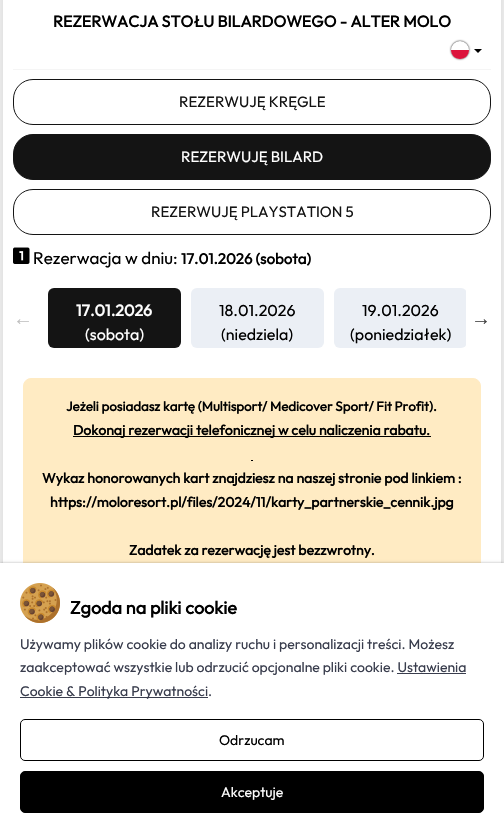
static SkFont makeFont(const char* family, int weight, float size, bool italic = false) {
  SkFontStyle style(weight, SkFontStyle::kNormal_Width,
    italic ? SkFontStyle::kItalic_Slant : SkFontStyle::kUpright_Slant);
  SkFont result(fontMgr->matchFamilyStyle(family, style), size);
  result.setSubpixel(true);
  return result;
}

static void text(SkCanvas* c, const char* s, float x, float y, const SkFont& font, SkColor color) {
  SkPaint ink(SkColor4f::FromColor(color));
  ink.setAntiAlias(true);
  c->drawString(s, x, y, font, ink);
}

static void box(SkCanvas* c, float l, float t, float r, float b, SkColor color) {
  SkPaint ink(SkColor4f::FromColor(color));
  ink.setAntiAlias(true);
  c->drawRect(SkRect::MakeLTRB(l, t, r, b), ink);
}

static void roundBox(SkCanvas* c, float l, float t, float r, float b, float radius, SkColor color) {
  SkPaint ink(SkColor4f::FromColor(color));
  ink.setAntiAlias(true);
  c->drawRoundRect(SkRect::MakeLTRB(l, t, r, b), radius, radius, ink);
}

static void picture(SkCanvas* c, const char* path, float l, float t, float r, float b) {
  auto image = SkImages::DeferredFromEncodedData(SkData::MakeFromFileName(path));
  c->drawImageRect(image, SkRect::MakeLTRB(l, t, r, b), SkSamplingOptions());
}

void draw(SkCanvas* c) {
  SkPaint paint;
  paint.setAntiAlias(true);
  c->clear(0xffffffff);
  c->save();
  c->clipPath(SkPathBuilder(SkPathFillType::kEvenOdd).moveTo(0, 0).lineTo(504, 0).lineTo(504, 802).lineTo(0, 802).close().moveTo(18, -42).lineTo(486, -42).cubicTo(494.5f, -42, 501, -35.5f, 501, -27).lineTo(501, 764).cubicTo(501, 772.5f, 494.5f, 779, 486, 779).lineTo(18, 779).cubicTo(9.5f, 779, 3, 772.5f, 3, 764).lineTo(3, -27).cubicTo(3, -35.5f, 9.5f, -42, 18, -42).close().detach(), true);
  paint.setColor(0xffdedede);
  paint.setMaskFilter(SkMaskFilter::MakeBlur(kNormal_SkBlurStyle, 5.5f));
  c->drawRoundRect(SkRect::MakeLTRB(-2, -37, 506, 784), 20, 20, paint);
  paint.setMaskFilter(nullptr);
  c->restore();
  SkFont face1 = makeFont("Outfit", 700, 16);
  text(c, "REZERWACJA STOŁU BILARDOWEGO - ALTER MOLO", 53, 27, face1, 0xff000000);
  paint.setColor(0xff000000);
  paint.setMaskFilter(SkMaskFilter::MakeBlur(kNormal_SkBlurStyle, 1));
  c->drawRoundRect(SkRect::MakeLTRB(451, 41, 469, 59), 9, 9, paint);
  paint.setMaskFilter(nullptr);
  paint.setColor(0xffffffff);
  c->drawCircle(460, 50, 9, paint);
  paint.setColor(0xffdc143c);
  c->drawPath(SkPathBuilder().moveTo(451, 50).lineTo(469, 50).cubicTo(469, 55, 465, 59, 460, 59).cubicTo(455, 59, 451, 55, 451, 50).close().detach(), paint);
  paint.setColor(0xff000000);
  c->drawPath(SkPathBuilder().moveTo(474, 49).lineTo(482, 49).lineTo(478, 53).close().detach(), paint);
  box(c, 13, 69, 491, 70, 0xfff5f5f5);
  paint.setStyle(SkPaint::kStroke_Style);
  paint.setStrokeWidth(1);
  paint.setColor(0xff141414);
  c->drawRoundRect(SkRect::MakeLTRB(13.5f, 79.5f, 490.5f, 124.5f), 19.5f, 19.5f, paint);
  SkFont face2 = makeFont("Outfit", 100, 15);
  text(c, "REZERWUJĘ KRĘGLE", 179, 107, face2, 0xff141414);
  paint.setStyle(SkPaint::kFill_Style);
  c->drawRoundRect(SkRect::MakeLTRB(13.5f, 134.5f, 490.5f, 179.5f), 19.5f, 19.5f, paint);
  paint.setStyle(SkPaint::kStroke_Style);
  c->drawRoundRect(SkRect::MakeLTRB(13.5f, 134.5f, 490.5f, 179.5f), 19.5f, 19.5f, paint);
  text(c, "REZERWUJĘ BILARD", 181, 162, face2, 0xffffffff);
  c->drawRoundRect(SkRect::MakeLTRB(13.5f, 189.5f, 490.5f, 234.5f), 19.5f, 19.5f, paint);
  text(c, "REZERWUJĘ PLAYSTATION 5", 151, 217, face2, 0xff141414);
  picture(c, "img_01.png", 13, 247, 30, 264);
  SkFont face3 = makeFont("Outfit", 100, 17);
  text(c, "Rezerwacja w dniu:", 33, 264, face3, 0xff000000);
  SkFont face4 = makeFont("Outfit", 700, 15);
  text(c, "17.01.2026 (sobota)", 181, 264, face4, 0xff000000);
  SkFont face5 = makeFont("Liberation Serif", 400, 20);
  text(c, "←", 13, 325, face5, 0xffbfbfbf);
  roundBox(c, 48, 288, 181, 348, 6, 0xff141414);
  text(c, "17.01.2026", 76, 316, face1, 0xffffffff);
  SkFont face6 = makeFont("Outfit", 100, 16);
  text(c, "(sobota)", 85, 340, face6, 0xffffffff);
  roundBox(c, 191, 288, 324, 348, 6, 0xffebeff5);
  text(c, "18.01.2026", 219, 316, face6, 0xff000000);
  text(c, "(niedziela)", 221, 340, face6, 0xff000000);
  c->save();
  c->clipRect(SkRect::MakeLTRB(38, 288, 466, 348));
  roundBox(c, 334, 288, 467, 348, 6, 0xffebeff5);
  c->restore();
  text(c, "19.01.2026", 362, 316, face6, 0xff000000);
  text(c, "(poniedziałek)", 350, 340, face6, 0xff000000);
  text(c, "→", 471, 325, face5, 0xff404040);
  paint.setStyle(SkPaint::kFill_Style);
  paint.setColor(0xffffebc3);
  c->drawRoundRect(SkRect::MakeLTRB(23.5f, 378.5f, 480.5f, 625.5f), 7.5f, 7.5f, paint);
  paint.setStyle(SkPaint::kStroke_Style);
  c->drawRoundRect(SkRect::MakeLTRB(23.5f, 378.5f, 480.5f, 625.5f), 7.5f, 7.5f, paint);
  SkFont face7 = makeFont("Outfit", 700, 13.3f);
  text(c, "Jeżeli posiadasz kartę (Multisport/ Medicover Sport/ Fit Profit).", 66, 411, face7, 0xff000000);
  box(c, 73, 436, 431, 437, 0xff000000);
  SkFont face8 = makeFont("Outfit", 700, 14);
  text(c, "Dokonaj rezerwacji telefonicznej w celu naliczenia rabatu.", 73, 435, face8, 0xff000000);
  box(c, 251, 460, 253, 461, 0xff000000);
  text(c, "Wykaz honorowanych kart znajdziesz na naszej stronie pod linkiem :", 42, 483, face8, 0xff000000);
  text(c, "https://moloresort.pl/files/2024/11/karty_partnerskie_cennik.jpg", 50, 507, face8, 0xff000000);
  text(c, "Zadatek za rezerwację jest bezzwrotny.", 129, 555, face8, 0xff000000);
  paint.setStyle(SkPaint::kFill_Style);
  paint.setColor(0xf7000000);
  paint.setMaskFilter(SkMaskFilter::MakeBlur(kNormal_SkBlurStyle, 2));
  c->drawRect(SkRect::MakeLTRB(0, 565, 504, 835), paint);
  paint.setMaskFilter(nullptr);
  box(c, 0, 563, 504, 833, 0xffffffff);
  picture(c, "img_02.png", 20, 583, 60, 623);
  SkFont face9 = makeFont("Outfit", 700, 18);
  text(c, "Zgoda na pliki cookie", 70, 614, face9, 0xff000000);
  SkFont face10 = makeFont("Outfit", 100, 14);
  text(c, "Używamy plików cookie do analizy ruchu i personalizacji treści. Możesz", 20, 649, face10, 0xff393d4d);
  text(c, "zaakceptować wszystkie lub odrzucić opcjonalne pliki cookie. Ustawienia", 20, 672, face10, 0xff393d4d);
  box(c, 20, 697, 208, 698, 0xff393d4d);
  text(c, "Cookie & Polityka Prywatności.", 20, 696, face10, 0xff393d4d);
  box(c, 397, 673, 466, 674, 0xff393d4d);
  paint.setStyle(SkPaint::kStroke_Style);
  paint.setColor(0xff000000);
  c->drawRoundRect(SkRect::MakeLTRB(20.5f, 719.5f, 483.5f, 760.5f), 4.5f, 4.5f, paint);
  text(c, "Odrzucam", 219, 745, face10, 0xff000000);
  paint.setStyle(SkPaint::kFill_Style);
  c->drawRoundRect(SkRect::MakeLTRB(20.5f, 771.5f, 483.5f, 812.5f), 4.5f, 4.5f, paint);
  paint.setStyle(SkPaint::kStroke_Style);
  c->drawRoundRect(SkRect::MakeLTRB(20.5f, 771.5f, 483.5f, 812.5f), 4.5f, 4.5f, paint);
  text(c, "Akceptuje", 221, 797, face10, 0xffffffff);
}
